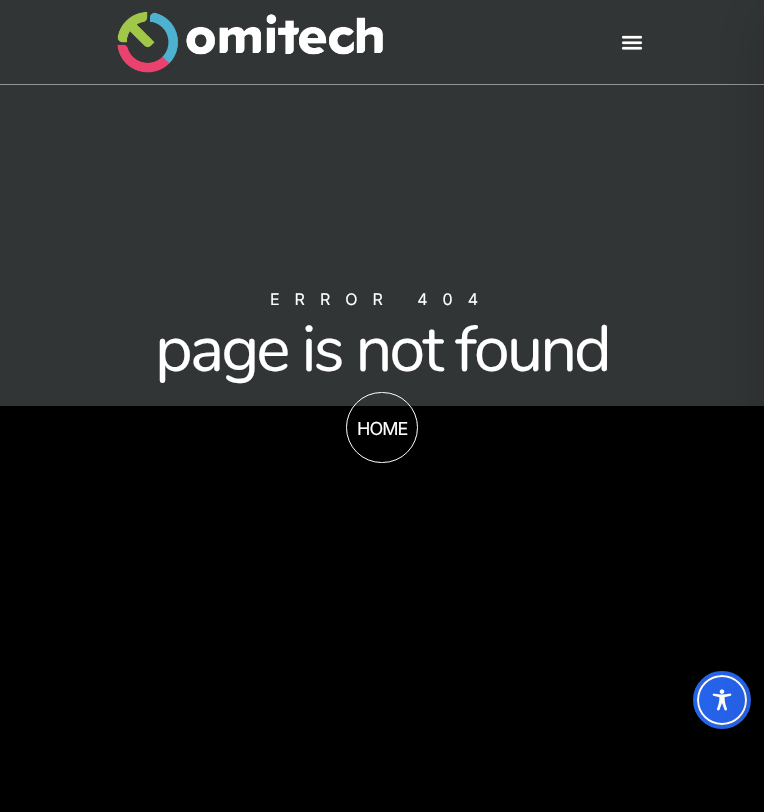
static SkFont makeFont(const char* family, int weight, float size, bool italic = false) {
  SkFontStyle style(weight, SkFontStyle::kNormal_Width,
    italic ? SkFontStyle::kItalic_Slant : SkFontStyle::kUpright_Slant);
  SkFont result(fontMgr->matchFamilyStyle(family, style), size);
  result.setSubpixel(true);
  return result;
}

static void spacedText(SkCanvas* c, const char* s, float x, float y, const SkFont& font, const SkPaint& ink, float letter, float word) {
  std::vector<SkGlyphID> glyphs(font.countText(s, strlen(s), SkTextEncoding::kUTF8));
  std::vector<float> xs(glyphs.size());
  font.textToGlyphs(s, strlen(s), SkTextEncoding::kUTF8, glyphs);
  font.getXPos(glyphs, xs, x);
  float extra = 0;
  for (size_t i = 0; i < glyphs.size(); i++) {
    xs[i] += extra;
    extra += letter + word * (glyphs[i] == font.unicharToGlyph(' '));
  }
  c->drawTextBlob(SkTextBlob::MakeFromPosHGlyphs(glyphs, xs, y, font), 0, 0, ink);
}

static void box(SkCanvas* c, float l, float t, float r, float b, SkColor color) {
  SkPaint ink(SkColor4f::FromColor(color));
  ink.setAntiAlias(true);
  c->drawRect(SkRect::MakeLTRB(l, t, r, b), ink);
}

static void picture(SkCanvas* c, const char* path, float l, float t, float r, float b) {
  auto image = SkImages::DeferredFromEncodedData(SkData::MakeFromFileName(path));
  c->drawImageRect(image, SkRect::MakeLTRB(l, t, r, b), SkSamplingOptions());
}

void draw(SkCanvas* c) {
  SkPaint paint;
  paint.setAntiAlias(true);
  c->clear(0xff000000);
  box(c, 0, 0, 764, 406, 0xff323535);
  box(c, 0, 84, 764, 85, 0xff939494);
  picture(c, "img_01.png", 117, 11, 383, 73);
  picture(c, "img_02.png", 621, 35, 643, 50);
  SkFont face1 = makeFont("Inter", 400, 16);
  paint.setColor(0xffffffff);
  spacedText(c, "ERROR 404", 270, 305, face1, paint, 15, 0);
  SkFont face2 = makeFont("Nunito", 400, 65);
  spacedText(c, "page is not found", 155, 371, face2, paint, -3, 0);
  paint.setStyle(SkPaint::kStroke_Style);
  paint.setStrokeWidth(1);
  c->drawRoundRect(SkRect::MakeLTRB(346.5f, 392.5f, 417.5f, 462.5f), 35, 35, paint);
  SkFont face3 = makeFont("Inter", 400, 18);
  paint.setStyle(SkPaint::kFill_Style);
  spacedText(c, "HOME", 357, 435, face3, paint, -1, 0);
  paint.setStyle(SkPaint::kStroke_Style);
  paint.setStrokeWidth(4);
  paint.setColor(0xff2563eb);
  c->drawCircle(722, 700, 27, paint);
  paint.setStyle(SkPaint::kFill_Style);
  c->drawCircle(722, 700, 24, paint);
  paint.setStyle(SkPaint::kStroke_Style);
  paint.setStrokeWidth(2);
  paint.setColor(0xffffffff);
  c->drawCircle(722, 700, 24, paint);
  picture(c, "img_03.png", 712, 689, 732, 711);
  paint.setStyle(SkPaint::kFill_Style);
  paint.setColor(0x33000000);
  paint.setMaskFilter(SkMaskFilter::MakeBlur(kNormal_SkBlurStyle, 30));
  c->drawRect(SkRect::MakeLTRB(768, 10, 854, 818), paint);
  paint.setMaskFilter(nullptr);
}
